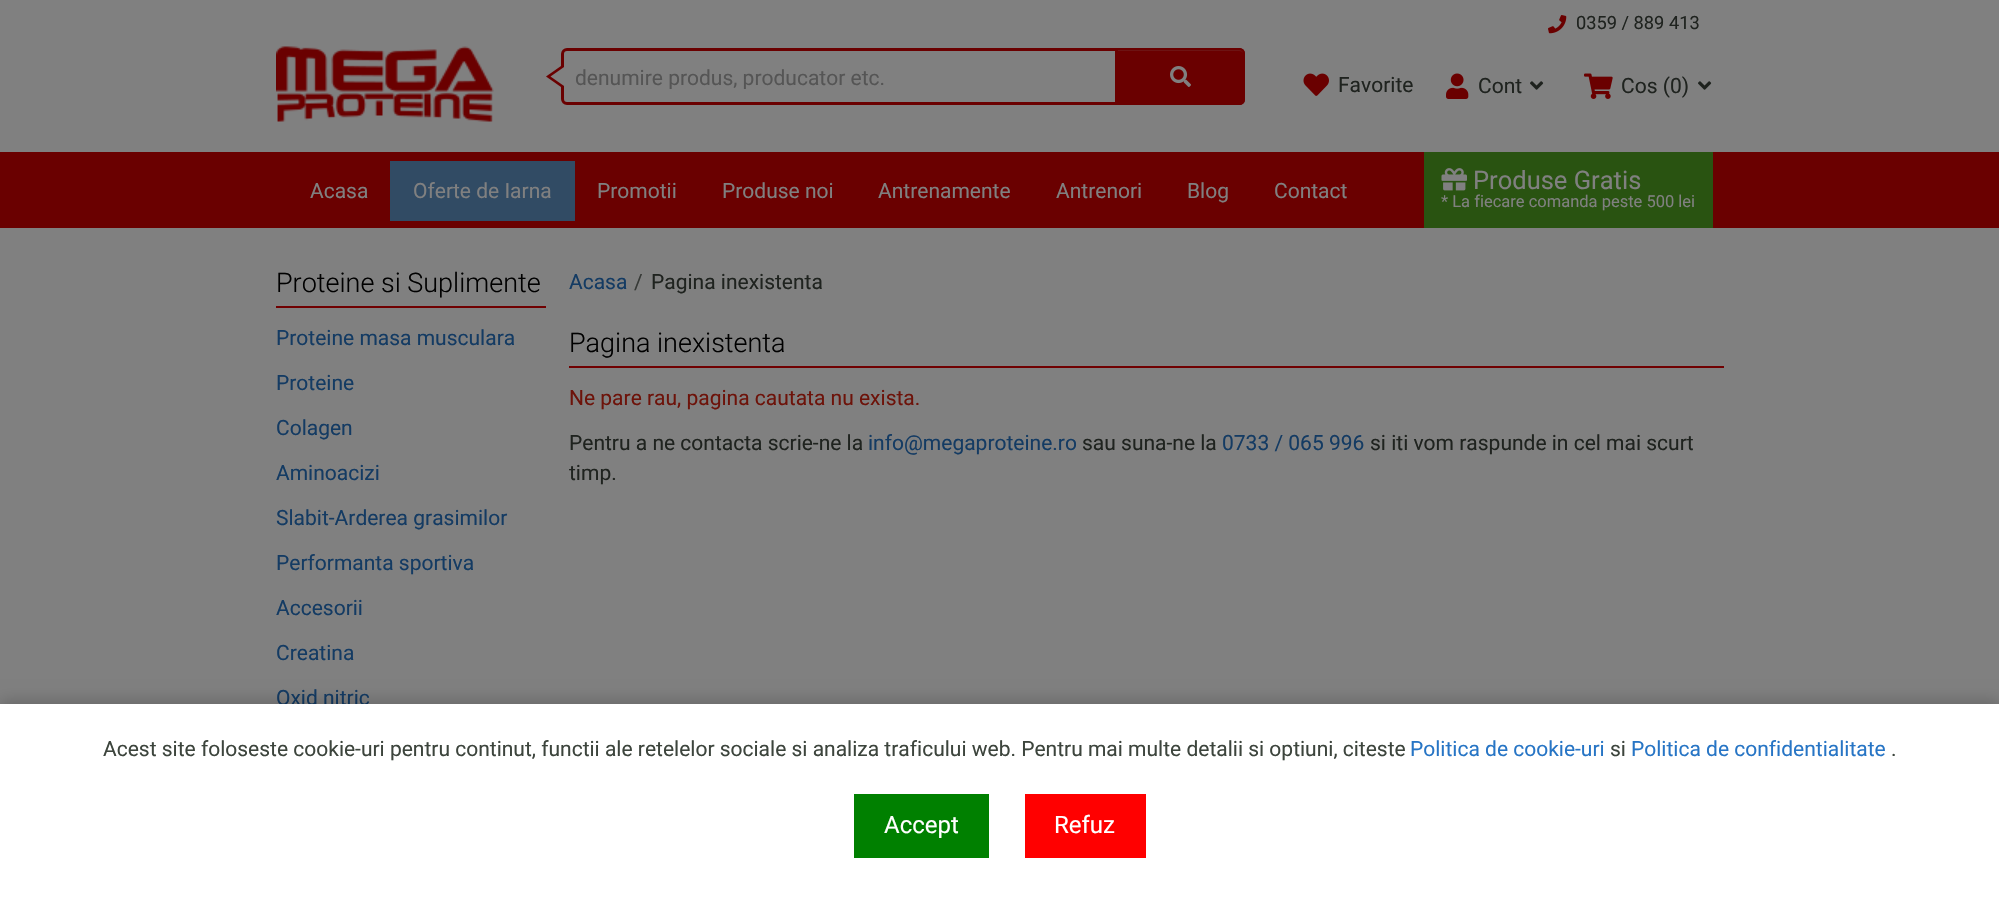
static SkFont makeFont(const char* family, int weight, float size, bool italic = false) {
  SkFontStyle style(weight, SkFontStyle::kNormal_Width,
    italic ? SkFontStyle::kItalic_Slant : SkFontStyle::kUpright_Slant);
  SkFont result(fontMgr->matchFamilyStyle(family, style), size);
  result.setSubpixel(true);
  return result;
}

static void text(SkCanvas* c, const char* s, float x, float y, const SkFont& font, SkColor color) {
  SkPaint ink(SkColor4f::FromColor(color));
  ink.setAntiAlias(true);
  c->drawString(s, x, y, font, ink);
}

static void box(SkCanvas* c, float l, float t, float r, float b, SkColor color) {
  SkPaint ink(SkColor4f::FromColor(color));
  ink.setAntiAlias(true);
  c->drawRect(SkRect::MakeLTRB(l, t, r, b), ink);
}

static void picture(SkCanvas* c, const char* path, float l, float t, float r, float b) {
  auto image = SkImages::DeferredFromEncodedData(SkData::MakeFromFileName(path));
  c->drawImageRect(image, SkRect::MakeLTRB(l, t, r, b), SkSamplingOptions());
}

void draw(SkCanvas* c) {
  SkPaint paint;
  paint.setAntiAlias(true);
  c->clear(0xff808080);
  picture(c, "img_01.png", 1548, 15, 1567, 34);
  SkFont face1 = makeFont("Roboto", 400, 18.25f);
  text(c, "0359 / 889 413", 1576, 29, face1, 0xff1f231f);
  picture(c, "img_02.png", 276, 46, 494, 122);
  paint.setColor(0xff6a0000);
  c->drawPath(SkPathBuilder().moveTo(561, 66).lineTo(561, 87).lineTo(546, 76.5f).close().detach(), paint);
  paint.setStyle(SkPaint::kStroke_Style);
  paint.setStrokeWidth(3);
  c->drawPath(SkPathBuilder().moveTo(567, 49.5f).lineTo(1116.5f, 49.5f).lineTo(1116.5f, 103.5f).lineTo(567, 103.5f).cubicTo(564.5f, 103.5f, 562.5f, 101.5f, 562.5f, 99).lineTo(562.5f, 54).cubicTo(562.5f, 51.5f, 564.5f, 49.5f, 567, 49.5f).close().detach(), paint);
  paint.setStyle(SkPaint::kFill_Style);
  c->drawPath(SkPathBuilder().moveTo(1116, 48).lineTo(1239, 48).cubicTo(1242.5f, 48, 1245, 50.5f, 1245, 54).lineTo(1245, 99).cubicTo(1245, 102.5f, 1242.5f, 105, 1239, 105).lineTo(1116, 105).close().detach(), paint);
  paint.setColor(0xff6d1313);
  c->drawPath(SkPathBuilder().moveTo(1118, 51).lineTo(1239, 51).cubicTo(1242, 51, 1244, 53, 1244, 55).cubicTo(1244, 52, 1242, 50, 1239, 50).lineTo(1118, 50).close().detach(), paint);
  paint.setStyle(SkPaint::kStroke_Style);
  paint.setStrokeWidth(2);
  paint.setColor(0xff6a0000);
  c->drawPath(SkPathBuilder().moveTo(1117, 49).lineTo(1239, 49).cubicTo(1242, 49, 1244, 51, 1244, 54).lineTo(1244, 99).cubicTo(1244, 102, 1242, 104, 1239, 104).lineTo(1117, 104).close().detach(), paint);
  picture(c, "img_03.png", 1170, 66, 1191, 87);
  paint.setStyle(SkPaint::kFill_Style);
  paint.setColor(0xff808080);
  c->drawPath(SkPathBuilder().moveTo(565.5f, 66).lineTo(565.5f, 87).lineTo(550.5f, 76.5f).close().detach(), paint);
  c->save();
  c->clipRect(SkRect::MakeLTRB(576, 65, 1104, 89));
  SkFont face2 = makeFont("Roboto", 400, 21);
  text(c, "denumire produs, producator etc.", 575, 85, face2, 0xff555555);
  c->restore();
  picture(c, "img_04.png", 1303, 73, 1329, 96);
  text(c, "Favorite", 1338, 92, face2, 0xff1f231f);
  picture(c, "img_05.png", 1446, 73, 1469, 99);
  text(c, "Cont", 1478, 93, face2, 0xff1f231f);
  picture(c, "img_06.png", 1530, 81, 1544, 90);
  picture(c, "img_07.png", 1584, 73, 1613, 99);
  text(c, "Cos (0)", 1621, 93, face2, 0xff1f231f);
  picture(c, "img_06.png", 1698, 81, 1712, 90);
  box(c, 0, 152, 1999, 228, 0xff6a0000);
  text(c, "Acasa", 310, 198, face2, 0xff808080);
  box(c, 390, 161, 575, 221, 0xff314b64);
  text(c, "Oferte de Iarna", 413, 198, face2, 0xff808080);
  text(c, "Promotii", 597, 198, face2, 0xff808080);
  text(c, "Produse noi", 722, 198, face2, 0xff808080);
  text(c, "Antrenamente", 878, 198, face2, 0xff808080);
  text(c, "Antrenori", 1056, 198, face2, 0xff808080);
  text(c, "Blog", 1187, 198, face2, 0xff808080);
  text(c, "Contact", 1274, 198, face2, 0xff808080);
  box(c, 1424, 152, 1713, 228, 0xff295311);
  picture(c, "img_08.png", 1441, 168, 1467, 191);
  SkFont face3 = makeFont("Roboto", 400, 25.5f);
  text(c, "Produse Gratis", 1473, 189, face3, 0xff808080);
  SkFont face4 = makeFont("Roboto", 400, 16.5f);
  text(c, "* La fiecare comanda peste 500 lei", 1441, 207, face4, 0xff808080);
  box(c, 276, 306, 546, 308, 0xff700001);
  SkFont face5 = makeFont("Roboto", 300, 27);
  text(c, "Proteine si Suplimente", 276, 292, face5, 0xff000000);
  text(c, "Proteine masa musculara", 276, 345, face2, 0xff143b63);
  text(c, "Proteine", 276, 390, face2, 0xff143b63);
  text(c, "Colagen", 276, 435, face2, 0xff143b63);
  text(c, "Aminoacizi", 276, 480, face2, 0xff143b63);
  text(c, "Slabit-Arderea grasimilor", 276, 525, face2, 0xff143b63);
  text(c, "Performanta sportiva", 276, 570, face2, 0xff143b63);
  text(c, "Accesorii", 276, 615, face2, 0xff143b63);
  text(c, "Creatina", 276, 660, face2, 0xff143b63);
  text(c, "Oxid nitric", 276, 705, face2, 0xff143b63);
  text(c, "Acasa", 569, 289, face2, 0xff143b63);
  text(c, "/", 634, 289, face2, 0xff373a37);
  text(c, "Pagina inexistenta", 651, 289, face2, 0xff1f231f);
  box(c, 569, 366, 1724, 368, 0xff700001);
  text(c, "Pagina inexistenta", 569, 352, face5, 0xff000000);
  text(c, "Ne pare rau, pagina cautata nu exista.", 569, 405, face2, 0xff6d130a);
  text(c, "Pentru a ne contacta scrie-ne la", 569, 450, face2, 0xff1f231f);
  text(c, "info@megaproteine.ro", 868, 450, face2, 0xff143b63);
  text(c, "sau suna-ne la", 1082, 450, face2, 0xff1f231f);
  text(c, "0733 / 065 996", 1222, 450, face2, 0xff143b63);
  text(c, "si iti vom raspunde in cel mai scurt", 1370, 450, face2, 0xff1f231f);
  text(c, "timp.", 569, 480, face2, 0xff1f231f);
  paint.setColor(0x33000000);
  paint.setMaskFilter(SkMaskFilter::MakeBlur(kNormal_SkBlurStyle, 7.5f));
  c->drawRect(SkRect::MakeLTRB(0, 701, 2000, 900), paint);
  paint.setMaskFilter(nullptr);
  box(c, 0, 704, 1999, 903, 0xffffffff);
  text(c, "Acest site foloseste cookie-uri pentru continut, functii ale retelelor sociale si analiza traficului web. Pentru mai multe detalii si optiuni, citeste", 103, 756, face2, 0xff3d453d);
  text(c, "Politica de cookie-uri", 1410, 756, face2, 0xff2775c5);
  text(c, "si", 1610, 756, face2, 0xff3d453d);
  text(c, "Politica de confidentialitate", 1631, 756, face2, 0xff2775c5);
  text(c, ".", 1891, 756, face2, 0xff3d453d);
  box(c, 854, 794, 989, 858, 0xff008000);
  SkFont face6 = makeFont("Roboto", 400, 24);
  text(c, "Accept", 884, 833, face6, 0xffffffff);
  box(c, 1025, 794, 1146, 858, 0xffff0000);
  text(c, "Refuz", 1054, 833, face6, 0xffffffff);
}
